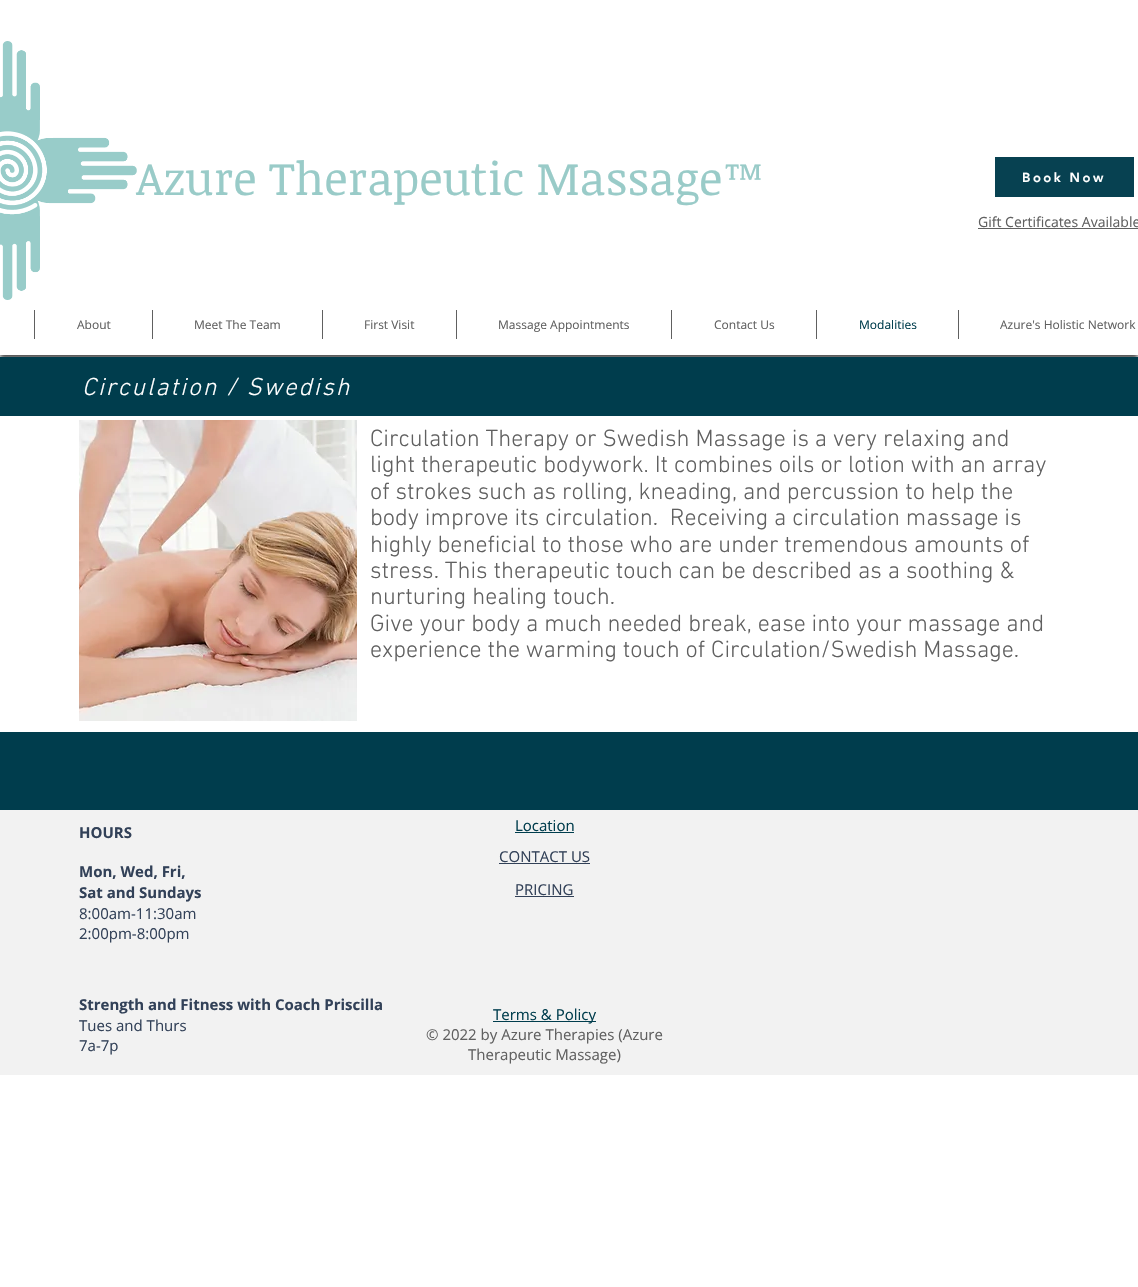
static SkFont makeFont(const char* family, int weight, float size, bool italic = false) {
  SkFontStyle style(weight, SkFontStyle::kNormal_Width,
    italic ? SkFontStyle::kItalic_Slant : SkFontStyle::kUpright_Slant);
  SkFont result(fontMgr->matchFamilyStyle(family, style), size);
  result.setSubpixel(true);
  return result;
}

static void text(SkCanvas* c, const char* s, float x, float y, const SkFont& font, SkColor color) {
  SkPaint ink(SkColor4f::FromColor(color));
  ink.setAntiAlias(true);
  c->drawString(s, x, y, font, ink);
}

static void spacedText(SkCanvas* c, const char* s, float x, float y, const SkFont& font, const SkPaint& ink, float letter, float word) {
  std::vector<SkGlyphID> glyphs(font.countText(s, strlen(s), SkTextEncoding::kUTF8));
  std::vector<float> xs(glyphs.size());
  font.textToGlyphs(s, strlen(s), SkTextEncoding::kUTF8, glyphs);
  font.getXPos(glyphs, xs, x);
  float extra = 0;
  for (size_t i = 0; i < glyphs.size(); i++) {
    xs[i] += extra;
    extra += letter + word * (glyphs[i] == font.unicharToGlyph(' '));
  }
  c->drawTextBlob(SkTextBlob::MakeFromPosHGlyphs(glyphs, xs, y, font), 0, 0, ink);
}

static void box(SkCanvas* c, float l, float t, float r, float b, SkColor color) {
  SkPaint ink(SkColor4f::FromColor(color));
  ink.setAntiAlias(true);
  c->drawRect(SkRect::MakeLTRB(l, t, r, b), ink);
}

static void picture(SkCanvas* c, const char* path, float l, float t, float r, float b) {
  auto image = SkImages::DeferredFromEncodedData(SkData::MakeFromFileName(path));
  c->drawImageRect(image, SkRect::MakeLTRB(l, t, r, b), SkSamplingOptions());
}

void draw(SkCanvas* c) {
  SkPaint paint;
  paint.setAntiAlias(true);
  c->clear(0xffffffff);
  c->save();
  c->clipRect(SkRect::MakeLTRB(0, 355, 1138, 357));
  paint.setColor(0xb3000000);
  paint.setMaskFilter(SkMaskFilter::MakeBlur(kNormal_SkBlurStyle, 2.5f));
  c->drawRect(SkRect::MakeLTRB(0, 4, 1138, 359), paint);
  paint.setMaskFilter(nullptr);
  c->restore();
  picture(c, "img_01.png", 0, 41, 137, 300);
  SkFont face1 = makeFont("Noticia Text", 400, 46);
  text(c, "Azure Therapeutic Massage™", 136, 195, face1, 0xff99cbc8);
  box(c, 995, 157, 1134, 197, 0xff074151);
  SkFont face2 = makeFont("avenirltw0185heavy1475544", 900, 13);
  paint.setColor(0xffffffff);
  spacedText(c, "Book Now", 1022, 182, face2, paint, 2.5f, 0);
  SkFont face3 = makeFont("Open Sans", 400, 14);
  text(c, "Gift Certificates Available", 978, 227, face3, 0xff606060);
  box(c, 978, 228, 1138, 229, 0xff606060);
  box(c, 34, 310, 35, 339, 0xff606060);
  SkFont face4 = makeFont("Open Sans", 400, 12);
  text(c, "About", 77, 329, face4, 0xff606060);
  box(c, 152, 310, 153, 339, 0xff606060);
  text(c, "Meet The Team", 194, 329, face4, 0xff606060);
  box(c, 322, 310, 323, 339, 0xff606060);
  text(c, "First Visit", 364, 329, face4, 0xff606060);
  box(c, 456, 310, 457, 339, 0xff606060);
  text(c, "Massage Appointments", 498, 329, face4, 0xff606060);
  box(c, 671, 310, 672, 339, 0xff606060);
  text(c, "Contact Us", 714, 329, face4, 0xff606060);
  box(c, 816, 310, 817, 339, 0xff606060);
  text(c, "Modalities", 859, 329, face4, 0xff003d4d);
  box(c, 958, 310, 959, 339, 0xff606060);
  text(c, "Azure's Holistic Network", 1000, 329, face4, 0xff606060);
  box(c, 0, 357, 1138, 416, 0xff003d4d);
  SkFont face5 = makeFont("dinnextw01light", 300, 25, true);
  spacedText(c, "Circulation / Swedish", 82, 395, face5, paint, 2, 0);
  picture(c, "img_02.png", 79, 420, 357, 721);
  SkFont face6 = makeFont("dinnextw01light", 300, 24);
  text(c, "Circulation Therapy or Swedish Massage is a very relaxing and", 370, 446, face6, 0xff606060);
  text(c, "light therapeutic bodywork. It combines oils or lotion with an array", 370, 472, face6, 0xff606060);
  text(c, "of strokes such as rolling, kneading, and percussion to help the", 370, 499, face6, 0xff606060);
  text(c, "body improve its circulation.  Receiving a circulation massage is", 370, 525, face6, 0xff606060);
  text(c, "highly beneficial to those who are under tremendous amounts of", 370, 552, face6, 0xff606060);
  text(c, "stress. This therapeutic touch can be described as a soothing &", 370, 578, face6, 0xff606060);
  text(c, "nurturing healing touch.", 370, 604, face6, 0xff606060);
  text(c, "Give your body a much needed break, ease into your massage and", 370, 631, face6, 0xff606060);
  text(c, "experience the warming touch of Circulation/Swedish Massage.", 370, 657, face6, 0xff606060);
  box(c, 0, 732, 1138, 810, 0xff003d4d);
  box(c, 0, 810, 1138, 1075, 0xfff2f2f2);
  SkFont face7 = makeFont("Open Sans", 700, 15);
  text(c, "HOURS", 79, 838, face7, 0xff324158);
  text(c, "Mon, Wed, Fri,", 79, 877, face7, 0xff324158);
  text(c, "Sat and Sundays", 79, 898, face7, 0xff324158);
  SkFont face8 = makeFont("Open Sans", 400, 15);
  text(c, "8:00am-11:30am", 79, 919, face8, 0xff324158);
  text(c, "2:00pm-8:00pm", 79, 939, face8, 0xff324158);
  text(c, "Location", 515, 831, face8, 0xff003d4d);
  box(c, 515, 832, 574, 833, 0xff003d4d);
  text(c, "CONTACT US", 499, 862, face8, 0xff324158);
  box(c, 499, 863, 590, 864, 0xff324158);
  text(c, "PRICING", 515, 895, face8, 0xff324158);
  box(c, 515, 896, 574, 897, 0xff324158);
  text(c, "Strength and Fitness with Coach Priscilla", 79, 1010, face7, 0xff324158);
  text(c, "Tues and Thurs", 79, 1031, face8, 0xff324158);
  text(c, "7a-7p", 79, 1051, face8, 0xff324158);
  box(c, 493, 1021, 596, 1022, 0xff003d4d);
  text(c, "Terms & Policy", 493, 1020, face8, 0xff003d4d);
  text(c, "© 2022 by Azure Therapies (Azure", 426, 1040, face8, 0xff606060);
  text(c, "Therapeutic Massage)", 468, 1060, face8, 0xff606060);
}
